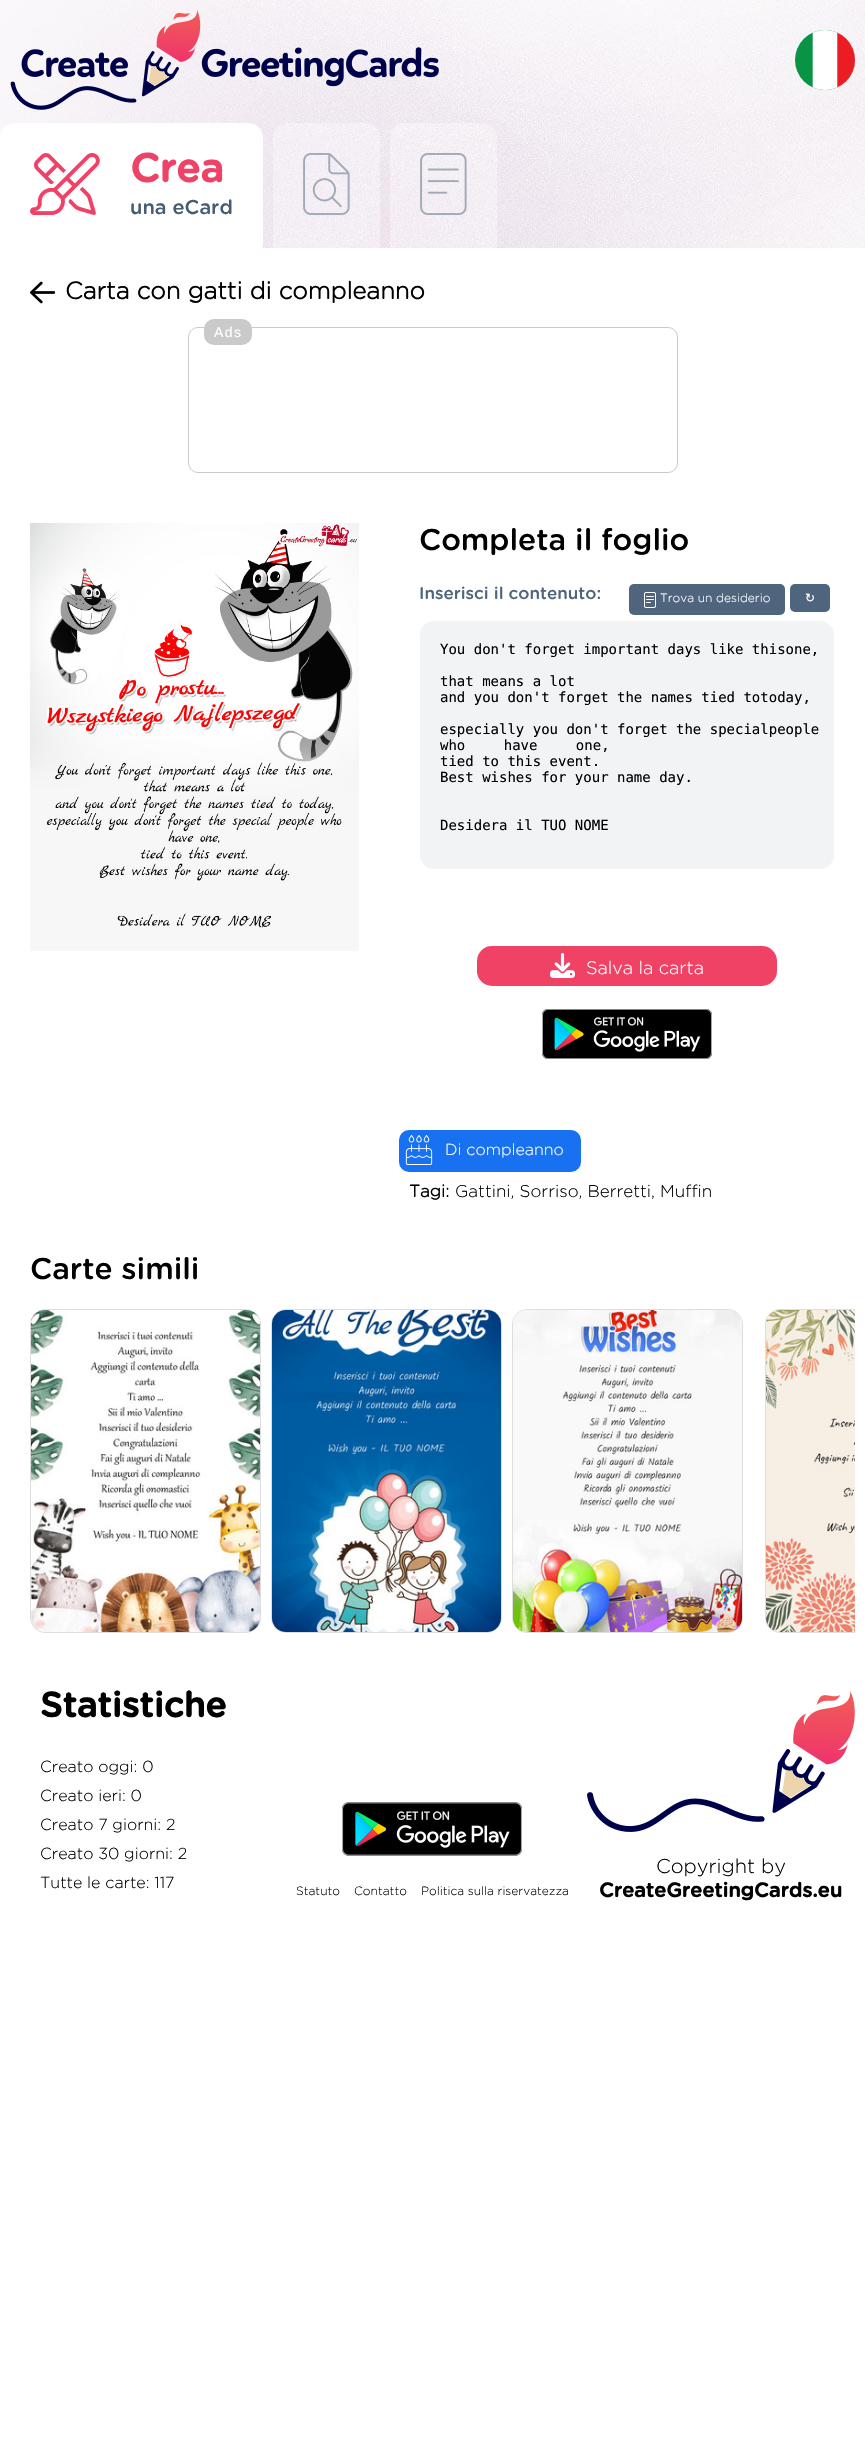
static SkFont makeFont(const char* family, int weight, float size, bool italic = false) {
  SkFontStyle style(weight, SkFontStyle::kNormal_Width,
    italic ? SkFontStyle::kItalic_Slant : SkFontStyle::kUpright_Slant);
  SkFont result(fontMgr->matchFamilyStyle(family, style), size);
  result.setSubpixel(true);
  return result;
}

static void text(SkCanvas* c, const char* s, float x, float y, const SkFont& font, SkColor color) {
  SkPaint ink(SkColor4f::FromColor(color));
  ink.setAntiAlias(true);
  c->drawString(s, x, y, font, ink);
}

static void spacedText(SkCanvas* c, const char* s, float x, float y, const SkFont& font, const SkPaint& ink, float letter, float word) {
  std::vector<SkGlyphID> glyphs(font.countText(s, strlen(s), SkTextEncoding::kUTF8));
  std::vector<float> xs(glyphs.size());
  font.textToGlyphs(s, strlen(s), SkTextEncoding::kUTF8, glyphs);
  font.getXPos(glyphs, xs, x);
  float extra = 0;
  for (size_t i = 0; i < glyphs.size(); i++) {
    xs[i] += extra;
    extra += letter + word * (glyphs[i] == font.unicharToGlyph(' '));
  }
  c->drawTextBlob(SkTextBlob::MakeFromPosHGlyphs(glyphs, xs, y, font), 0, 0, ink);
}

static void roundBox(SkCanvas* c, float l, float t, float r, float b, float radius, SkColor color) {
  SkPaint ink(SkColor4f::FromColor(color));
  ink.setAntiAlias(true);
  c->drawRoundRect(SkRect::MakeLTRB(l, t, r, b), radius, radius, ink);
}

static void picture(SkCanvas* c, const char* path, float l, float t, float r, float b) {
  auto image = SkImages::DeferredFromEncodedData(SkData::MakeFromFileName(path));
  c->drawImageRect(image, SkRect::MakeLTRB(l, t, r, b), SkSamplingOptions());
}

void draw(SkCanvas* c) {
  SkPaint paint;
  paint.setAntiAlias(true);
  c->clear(0xffffffff);
  picture(c, "img_01.png", 0, 0, 865, 248);
  picture(c, "img_02.png", 10, 10, 439, 110);
  picture(c, "img_03.png", 795, 30, 855, 90);
  paint.setColor(0xffffffff);
  c->drawPath(SkPathBuilder().moveTo(15, 123).lineTo(248, 123).cubicTo(256.5f, 123, 263, 129.5f, 263, 138).lineTo(263, 248).lineTo(0, 248).lineTo(0, 138).cubicTo(0, 129.5f, 6.5f, 123, 15, 123).close().detach(), paint);
  picture(c, "img_04.png", 30, 153, 100, 215);
  SkFont face1 = makeFont("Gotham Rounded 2", 700, 40);
  text(c, "Crea", 130, 182, face1, 0xffee4367);
  SkFont face2 = makeFont("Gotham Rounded", 500, 20);
  text(c, "una eCard", 130, 214, face2, 0xff445c74);
  paint.setColor(0x59ffffff);
  c->drawPath(SkPathBuilder().moveTo(288, 123).lineTo(365, 123).cubicTo(373.5f, 123, 380, 129.5f, 380, 138).lineTo(380, 248).lineTo(273, 248).lineTo(273, 138).cubicTo(273, 129.5f, 279.5f, 123, 288, 123).close().detach(), paint);
  picture(c, "img_05.png", 303, 153, 350, 215);
  c->drawPath(SkPathBuilder().moveTo(405, 123).lineTo(482, 123).cubicTo(490.5f, 123, 497, 129.5f, 497, 138).lineTo(497, 248).lineTo(390, 248).lineTo(390, 138).cubicTo(390, 129.5f, 396.5f, 123, 405, 123).close().detach(), paint);
  picture(c, "img_06.png", 420, 153, 467, 215);
  picture(c, "img_07.png", 30, 281, 55, 304);
  SkFont face3 = makeFont("Gotham Rounded", 700, 24);
  text(c, "Carta con gatti di compleanno", 65, 299, face3, 0xff000000);
  paint.setStyle(SkPaint::kStroke_Style);
  paint.setStrokeWidth(1);
  paint.setColor(0xffcacaca);
  c->drawRoundRect(SkRect::MakeLTRB(188.5f, 327.5f, 677.5f, 472.5f), 9.5f, 9.5f, paint);
  roundBox(c, 204, 319, 252, 345, 10, 0xffcacaca);
  SkFont face4 = makeFont("Liberation Sans", 400, 14);
  paint.setStyle(SkPaint::kFill_Style);
  paint.setColor(0xffffffff);
  spacedText(c, "Ads", 214, 337, face4, paint, 1.5f, 0);
  picture(c, "img_08.png", 30, 523, 359, 951);
  SkFont face5 = makeFont("Gotham Rounded", 500, 30);
  text(c, "Completa il foglio", 419, 550, face5, 0xff000000);
  SkFont face6 = makeFont("Gotham Rounded", 500, 17);
  text(c, "Inserisci il contenuto:", 419, 599, face6, 0xff4f657d);
  roundBox(c, 629, 584, 785, 615, 5, 0xff4f657d);
  picture(c, "img_09.png", 644, 592, 656, 608);
  SkFont face7 = makeFont("Gotham Rounded", 300, 12);
  text(c, "Trova un desiderio", 660, 602, face7, 0xffffffff);
  roundBox(c, 790, 584, 830, 612, 5, 0xff4f657d);
  SkFont face8 = makeFont("DejaVu Sans", 400, 12);
  text(c, "↻", 805, 602, face8, 0xffffffff);
  paint.setColor(0xfff1f3f5);
  c->drawRoundRect(SkRect::MakeLTRB(419.5f, 620.5f, 834.5f, 869.5f), 14.5f, 14.5f, paint);
  paint.setStyle(SkPaint::kStroke_Style);
  paint.setColor(0xffffffff);
  c->drawRoundRect(SkRect::MakeLTRB(419.5f, 620.5f, 834.5f, 869.5f), 14.5f, 14.5f, paint);
  SkFont face9 = makeFont("DejaVu Sans Mono", 400, 14);
  text(c, "You don't forget important days like thisone,", 440, 654, face9, 0xff000000);
  text(c, "that means a lot", 440, 686, face9, 0xff000000);
  text(c, "and you don't forget the names tied totoday,", 440, 702, face9, 0xff000000);
  text(c, "especially you don't forget the specialpeople", 440, 734, face9, 0xff000000);
  paint.setStyle(SkPaint::kFill_Style);
  paint.setColor(0xff000000);
  spacedText(c, "who have one,", 440, 750, face9, paint, 0, 30);
  text(c, "tied to this event.", 440, 766, face9, 0xff000000);
  text(c, "Best wishes for your name day.", 440, 782, face9, 0xff000000);
  text(c, "Desidera il TUO NOME", 440, 830, face9, 0xff000000);
  roundBox(c, 477, 946, 777, 986, 15, 0xffef4265);
  picture(c, "img_10.png", 550, 953, 575, 978);
  SkFont face10 = makeFont("Gotham Rounded", 300, 18);
  text(c, "Salva la carta", 586, 974, face10, 0xffffffff);
  picture(c, "img_11.png", 542, 1009, 712, 1059);
  roundBox(c, 399, 1130, 581, 1172, 10, 0xff1871f1);
  picture(c, "img_12.png", 405, 1135, 433, 1165);
  SkFont face11 = makeFont("Gotham Rounded", 300, 16);
  text(c, "Di compleanno", 445, 1155, face11, 0xffffffff);
  SkFont face12 = makeFont("Gotham Rounded", 700, 17);
  text(c, "Tagi:", 409, 1197, face12, 0xff000000);
  SkFont face13 = makeFont("Gotham Rounded", 300, 17);
  text(c, "Gattini, Sorriso, Berretti, Muffin", 455, 1197, face13, 0xff000000);
  text(c, "Carte simili", 30, 1279, face5, 0xff000000);
  paint.setStyle(SkPaint::kStroke_Style);
  paint.setColor(0xffdddee1);
  c->drawRoundRect(SkRect::MakeLTRB(30.5f, 1309.5f, 260.5f, 1632.5f), 14.5f, 14.5f, paint);
  picture(c, "img_13.png", 31, 1310, 260, 1632);
  c->drawRoundRect(SkRect::MakeLTRB(271.5f, 1309.5f, 501.5f, 1632.5f), 14.5f, 14.5f, paint);
  picture(c, "img_14.png", 272, 1310, 501, 1632);
  c->drawRoundRect(SkRect::MakeLTRB(512.5f, 1309.5f, 742.5f, 1632.5f), 14.5f, 14.5f, paint);
  picture(c, "img_15.png", 513, 1310, 742, 1632);
  c->save();
  c->clipRect(SkRect::MakeLTRB(30, 1308, 855, 1636));
  c->drawRoundRect(SkRect::MakeLTRB(765.5f, 1309.5f, 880.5f, 1632.5f), 14.5f, 14.5f, paint);
  c->restore();
  picture(c, "img_16.png", 766, 1310, 855, 1632);
  SkFont face14 = makeFont("Gotham Rounded 2", 700, 35);
  text(c, "Statistiche", 40, 1717, face14, 0xff000000);
  text(c, "Creato oggi: 0", 40, 1772, face11, 0xff000000);
  text(c, "Creato ieri: 0", 40, 1801, face11, 0xff000000);
  text(c, "Creato 7 giorni: 2", 40, 1830, face11, 0xff000000);
  text(c, "Creato 30 giorni: 2", 40, 1859, face11, 0xff000000);
  text(c, "Tutte le carte: 117", 40, 1888, face11, 0xff000000);
  picture(c, "img_17.png", 342, 1802, 522, 1856);
  text(c, "Statuto", 296, 1895, face7, 0xff000000);
  text(c, "Contatto", 354, 1895, face7, 0xff000000);
  text(c, "Politica sulla riservatezza", 421, 1895, face7, 0xff000000);
  picture(c, "img_18.png", 587, 1691, 855, 1832);
  SkFont face15 = makeFont("Gotham Rounded", 300, 20);
  text(c, "Copyright by", 656, 1873, face15, 0xff000000);
  SkFont face16 = makeFont("Gotham Rounded 2", 700, 20);
  text(c, "CreateGreetingCards.eu", 599, 1897, face16, 0xff000000);
}
